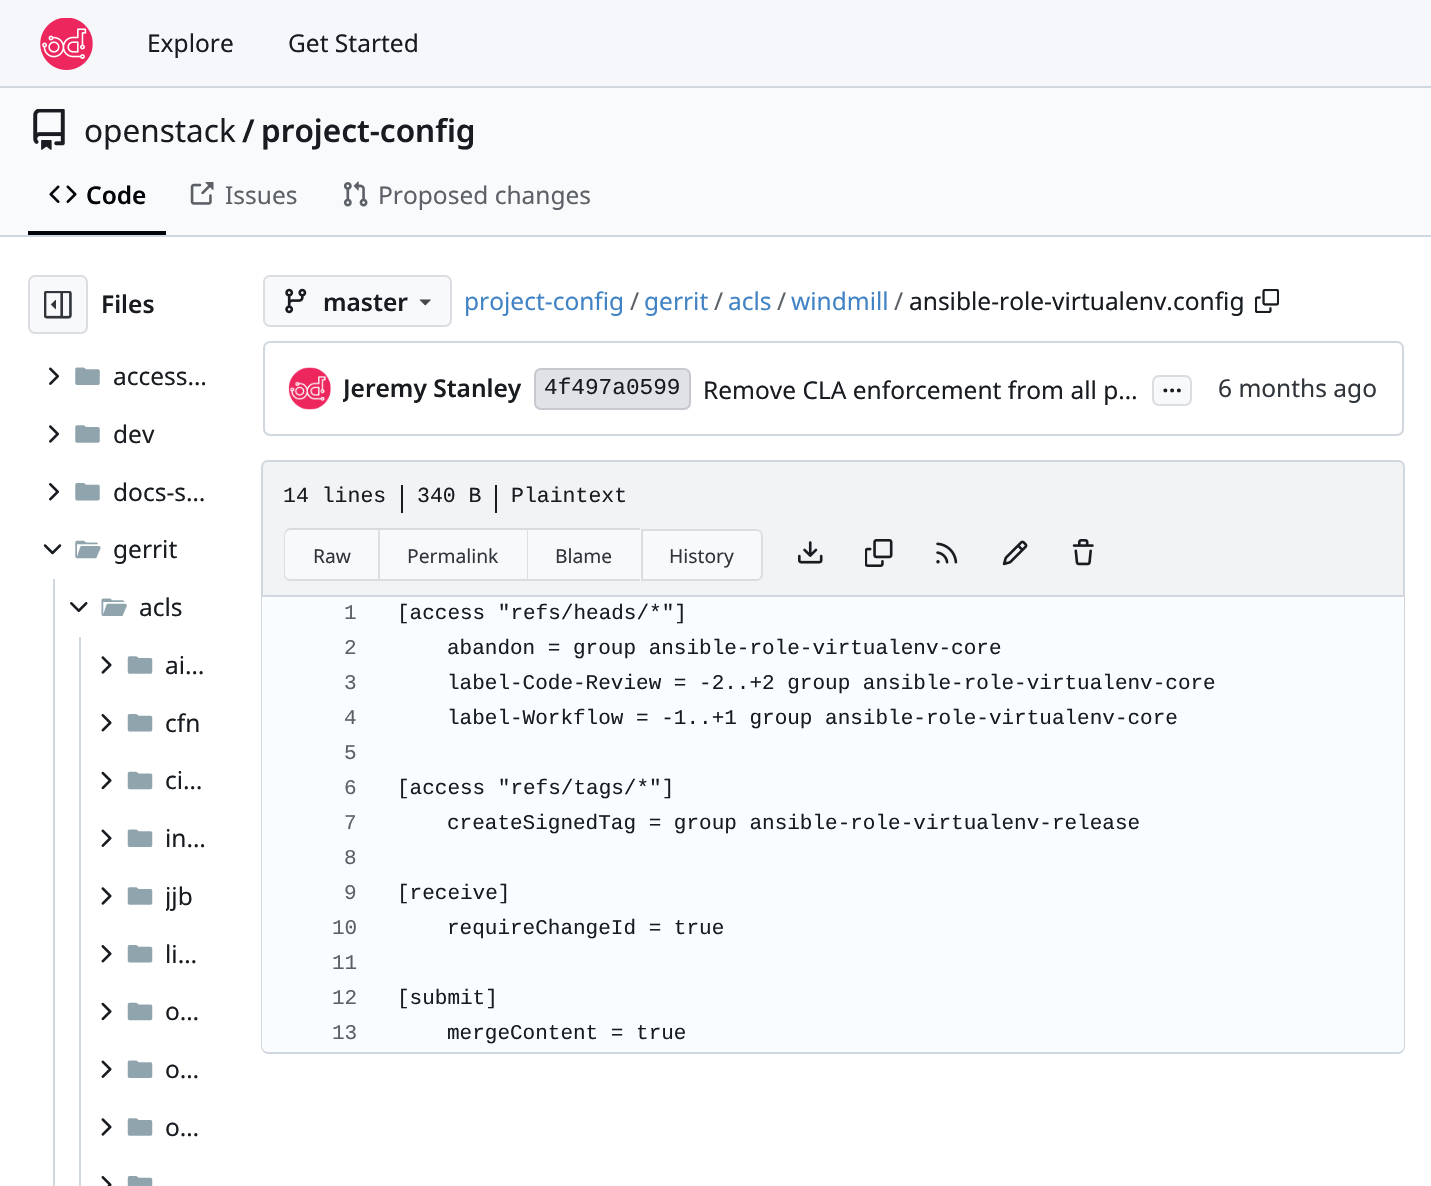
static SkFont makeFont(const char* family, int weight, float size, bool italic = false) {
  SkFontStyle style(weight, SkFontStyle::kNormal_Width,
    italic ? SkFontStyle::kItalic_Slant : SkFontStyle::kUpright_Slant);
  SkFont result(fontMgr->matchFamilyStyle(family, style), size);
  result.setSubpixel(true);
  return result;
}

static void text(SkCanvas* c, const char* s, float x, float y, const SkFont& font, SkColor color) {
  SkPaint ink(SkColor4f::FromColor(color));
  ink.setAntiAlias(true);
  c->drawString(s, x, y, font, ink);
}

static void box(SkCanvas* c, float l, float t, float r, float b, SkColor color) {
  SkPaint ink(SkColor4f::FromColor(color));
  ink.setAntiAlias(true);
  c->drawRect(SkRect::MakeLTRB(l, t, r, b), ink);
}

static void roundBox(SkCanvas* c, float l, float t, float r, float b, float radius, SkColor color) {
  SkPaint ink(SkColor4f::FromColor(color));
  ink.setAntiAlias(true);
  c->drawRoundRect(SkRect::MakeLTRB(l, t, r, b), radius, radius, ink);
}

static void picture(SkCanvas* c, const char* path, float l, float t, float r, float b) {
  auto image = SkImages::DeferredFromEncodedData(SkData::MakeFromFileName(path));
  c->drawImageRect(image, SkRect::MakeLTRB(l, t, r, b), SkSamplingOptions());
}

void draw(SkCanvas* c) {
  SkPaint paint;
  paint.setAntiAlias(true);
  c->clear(0xffffffff);
  box(c, 0, 0, 1431, 86, 0xfff6f7fa);
  box(c, 0, 86, 1431, 88, 0xffd0d7de);
  picture(c, "img_01.png", 40, 18, 93, 70);
  SkFont face1 = makeFont("Noto Sans", 400, 24.5f);
  text(c, "Explore", 147, 52, face1, 0xff181c21);
  text(c, "Get Started", 288, 52, face1, 0xff181c21);
  box(c, 0, 88, 1431, 235, 0xfff9fafb);
  picture(c, "img_02.png", 33, 109, 65, 150);
  SkFont face2 = makeFont("Noto Sans", 400, 31.5f);
  text(c, "openstack", 84, 142, face2, 0xff181c21);
  SkFont face3 = makeFont("Noto Sans", 600, 31.5f);
  text(c, "/", 242, 142, face3, 0xff181c21);
  text(c, "project-config", 261, 142, face3, 0xff181c21);
  box(c, 28, 231, 166, 235, 0xff01050a);
  picture(c, "img_03.png", 49, 185, 77, 203);
  SkFont face4 = makeFont("Noto Sans", 600, 24.5f);
  text(c, "Code", 86, 204, face4, 0xff01050a);
  picture(c, "img_04.png", 190, 182, 214, 205);
  text(c, "Issues", 225, 204, face1, 0xff5b6167);
  picture(c, "img_05.png", 343, 181, 368, 207);
  text(c, "Proposed changes", 378, 204, face1, 0xff5b6167);
  box(c, 0, 235, 1431, 237, 0xffd0d7de);
  roundBox(c, 28, 275, 88, 334, 7, 0xfff8f9fb);
  paint.setStyle(SkPaint::kStroke_Style);
  paint.setStrokeWidth(2);
  paint.setColor(0x1c000017);
  c->drawRoundRect(SkRect::MakeLTRB(29, 276, 87, 333), 6, 6, paint);
  picture(c, "img_06.png", 44, 291, 72, 319);
  text(c, "Files", 101, 313, face4, 0xff181c21);
  picture(c, "img_07.png", 49, 367, 59, 385);
  picture(c, "img_08.png", 75, 367, 100, 385);
  text(c, "access…", 113, 385, face1, 0xff181c21);
  picture(c, "img_09.png", 49, 425, 59, 443);
  picture(c, "img_10.png", 75, 425, 100, 443);
  text(c, "dev", 113, 443, face1, 0xff181c21);
  picture(c, "img_11.png", 49, 483, 59, 501);
  picture(c, "img_12.png", 75, 483, 100, 501);
  text(c, "docs-s…", 113, 501, face1, 0xff181c21);
  picture(c, "img_13.png", 43, 544, 62, 555);
  picture(c, "img_14.png", 75, 540, 101, 559);
  text(c, "gerrit", 113, 558, face1, 0xff181c21);
  box(c, 53, 579, 55, 1186, 0xffd0d7de);
  picture(c, "img_15.png", 70, 602, 88, 612);
  picture(c, "img_16.png", 101, 598, 127, 616);
  text(c, "acls", 139, 616, face1, 0xff181c21);
  box(c, 79, 637, 81, 1186, 0xffd0d7de);
  picture(c, "img_17.png", 101, 656, 112, 674);
  picture(c, "img_18.png", 127, 656, 153, 674);
  text(c, "ai…", 165, 674, face1, 0xff181c21);
  picture(c, "img_19.png", 101, 714, 112, 732);
  picture(c, "img_20.png", 127, 714, 153, 732);
  text(c, "cfn", 165, 732, face1, 0xff181c21);
  picture(c, "img_21.png", 101, 771, 112, 790);
  picture(c, "img_22.png", 127, 771, 153, 790);
  text(c, "ci…", 165, 789, face1, 0xff181c21);
  picture(c, "img_23.png", 101, 829, 112, 847);
  picture(c, "img_24.png", 127, 829, 153, 847);
  text(c, "in…", 165, 847, face1, 0xff181c21);
  picture(c, "img_17.png", 101, 887, 112, 905);
  picture(c, "img_18.png", 127, 887, 153, 905);
  c->save();
  c->clipRect(SkRect::MakeLTRB(166, 879, 193, 914));
  text(c, "jjb", 165, 905, face1, 0xff181c21);
  c->restore();
  picture(c, "img_19.png", 101, 945, 112, 963);
  picture(c, "img_20.png", 127, 945, 153, 963);
  text(c, "li…", 165, 963, face1, 0xff181c21);
  picture(c, "img_21.png", 101, 1002, 112, 1021);
  picture(c, "img_22.png", 127, 1002, 153, 1021);
  text(c, "o…", 165, 1020, face1, 0xff181c21);
  picture(c, "img_23.png", 101, 1060, 112, 1078);
  picture(c, "img_24.png", 127, 1060, 153, 1078);
  text(c, "o…", 165, 1078, face1, 0xff181c21);
  picture(c, "img_17.png", 101, 1118, 112, 1136);
  picture(c, "img_18.png", 127, 1118, 153, 1136);
  text(c, "o…", 165, 1136, face1, 0xff181c21);
  picture(c, "img_25.png", 101, 1176, 112, 1186);
  picture(c, "img_26.png", 127, 1176, 153, 1186);
  roundBox(c, 263, 275, 452, 327, 7, 0xfff8f9fb);
  c->drawRoundRect(SkRect::MakeLTRB(264, 276, 451, 326), 6, 6, paint);
  picture(c, "img_27.png", 285, 288, 307, 314);
  text(c, "master", 323, 311, face4, 0xff181c21);
  picture(c, "img_28.png", 419, 299, 431, 306);
  text(c, "project-config", 464, 310, face1, 0xff4183c4);
  text(c, "/", 630, 310, face1, 0xff5b6167);
  text(c, "gerrit", 644, 310, face1, 0xff4183c4);
  text(c, "/", 714, 310, face1, 0xff5b6167);
  text(c, "acls", 728, 310, face1, 0xff4183c4);
  text(c, "/", 777, 310, face1, 0xff5b6167);
  text(c, "windmill", 791, 310, face1, 0xff4183c4);
  text(c, "/", 894, 310, face1, 0xff5b6167);
  text(c, "ansible-role-virtualenv.config", 909, 310, face1, 0xff181c21);
  picture(c, "img_29.png", 1255, 289, 1279, 313);
  paint.setColor(0xffd0d7de);
  c->drawRoundRect(SkRect::MakeLTRB(264, 342, 1403, 435), 6, 6, paint);
  picture(c, "img_30.png", 288, 367, 331, 410);
  c->save();
  c->clipRect(SkRect::MakeLTRB(343, 371, 522, 406));
  text(c, "Jeremy Stanley", 343, 397, face4, 0xff181c21);
  c->restore();
  roundBox(c, 534, 368, 691, 410, 7, 0xffe0e2e5);
  paint.setColor(0x1c000017);
  c->drawRoundRect(SkRect::MakeLTRB(535, 369, 690, 409), 6, 6, paint);
  SkFont face5 = makeFont("Liberation Mono", 400, 22.75f);
  text(c, "4f497a0599", 544, 394, face5, 0xff181c21);
  text(c, "Remove CLA enforcement from all p…", 703, 399, face1, 0xff181c21);
  roundBox(c, 1152, 375, 1192, 406, 7, 0xfff8f9fb);
  c->drawRoundRect(SkRect::MakeLTRB(1153, 376, 1191, 405), 6, 6, paint);
  text(c, "...", 1162, 392, face4, 0xff181c21);
  text(c, "6 months ago", 1218, 397, face1, 0xff30363b);
  paint.setStyle(SkPaint::kFill_Style);
  paint.setColor(0xfff1f3f5);
  c->drawPath(SkPathBuilder().moveTo(268, 461).lineTo(1398, 461).cubicTo(1401.5f, 461, 1404, 463.5f, 1404, 467).lineTo(1404, 596).lineTo(262, 596).lineTo(262, 467).cubicTo(262, 463.5f, 264.5f, 461, 268, 461).close().detach(), paint);
  paint.setStyle(SkPaint::kStroke_Style);
  paint.setColor(0xffd0d7de);
  c->drawPath(SkPathBuilder().moveTo(268, 461).lineTo(1398, 461).cubicTo(1401.5f, 461, 1404, 463.5f, 1404, 467).lineTo(1404, 596).lineTo(262, 596).lineTo(262, 467).cubicTo(262, 463.5f, 264.5f, 461, 268, 461).close().detach(), paint);
  SkFont face6 = makeFont("Liberation Mono", 400, 21.5f);
  text(c, "14 lines", 283, 502, face6, 0xff181c21);
  box(c, 401, 485, 403, 513, 0xff181c21);
  text(c, "340 B", 417, 502, face6, 0xff181c21);
  box(c, 495, 485, 497, 513, 0xff181c21);
  text(c, "Plaintext", 511, 502, face6, 0xff181c21);
  paint.setStyle(SkPaint::kFill_Style);
  paint.setColor(0xfff8f9fb);
  c->drawPath(SkPathBuilder().moveTo(291, 529).lineTo(378, 529).lineTo(378, 581).lineTo(291, 581).cubicTo(287, 581, 284, 578, 284, 574).lineTo(284, 536).cubicTo(284, 532, 287, 529, 291, 529).close().detach(), paint);
  paint.setColor(0x1c000017);
  c->drawPath(SkPathBuilder(SkPathFillType::kEvenOdd).moveTo(290, 528).lineTo(378, 528).lineTo(378, 581).lineTo(290, 581).cubicTo(287, 581, 284, 578, 284, 574).lineTo(284, 536).cubicTo(284, 532, 287, 528, 290, 528).close().moveTo(290, 530).lineTo(378, 530).lineTo(378, 579).lineTo(290, 579).cubicTo(288, 579, 285, 577, 285, 574).lineTo(285, 536).cubicTo(285, 533, 288, 530, 290, 530).close().detach(), paint);
  SkFont face7 = makeFont("Noto Sans", 400, 19.25f);
  text(c, "Raw", 313, 563, face7, 0xff30363b);
  box(c, 378, 529, 641, 581, 0xfff8f9fb);
  c->drawPath(SkPathBuilder().moveTo(378, 528).lineTo(527, 528).lineTo(527, 530).lineTo(380, 530).close().detach(), paint);
  paint.setColor(0xffdcdde1);
  c->drawPath(SkPathBuilder().moveTo(527, 581).lineTo(378, 581).lineTo(380, 579).lineTo(527, 579).close().detach(), paint);
  paint.setColor(0x1c000017);
  c->drawPath(SkPathBuilder().moveTo(378, 581).lineTo(378, 528).lineTo(380, 530).lineTo(380, 579).close().detach(), paint);
  text(c, "Permalink", 407, 563, face7, 0xff30363b);
  c->drawPath(SkPathBuilder().moveTo(527, 528).lineTo(640, 528).lineTo(640, 530).lineTo(528, 530).close().detach(), paint);
  paint.setColor(0xffdcdde1);
  c->drawPath(SkPathBuilder().moveTo(640, 581).lineTo(527, 581).lineTo(528, 579).lineTo(640, 579).close().detach(), paint);
  paint.setColor(0x1c000017);
  c->drawPath(SkPathBuilder().moveTo(527, 581).lineTo(527, 528).lineTo(528, 530).lineTo(528, 579).close().detach(), paint);
  text(c, "Blame", 555, 563, face7, 0xff30363b);
  paint.setColor(0xfff8f9fb);
  c->drawPath(SkPathBuilder().moveTo(641, 529).lineTo(756, 529).cubicTo(760, 529, 763, 532, 763, 536).lineTo(763, 574).cubicTo(763, 578, 760, 581, 756, 581).lineTo(641, 581).close().detach(), paint);
  paint.setStyle(SkPaint::kStroke_Style);
  paint.setColor(0x1c000017);
  c->drawPath(SkPathBuilder().moveTo(642, 530).lineTo(756, 530).cubicTo(759.5f, 530, 762, 532.5f, 762, 536).lineTo(762, 574).cubicTo(762, 577.5f, 759.5f, 580, 756, 580).lineTo(642, 580).close().detach(), paint);
  text(c, "History", 669, 563, face7, 0xff30363b);
  picture(c, "img_31.png", 798, 541, 823, 564);
  picture(c, "img_32.png", 865, 539, 893, 567);
  picture(c, "img_33.png", 936, 542, 958, 564);
  picture(c, "img_34.png", 1002, 540, 1028, 566);
  picture(c, "img_35.png", 1072, 539, 1094, 566);
  paint.setStyle(SkPaint::kFill_Style);
  paint.setColor(0xffd0d7de);
  c->drawPath(SkPathBuilder(SkPathFillType::kEvenOdd).moveTo(261, 597).lineTo(1405, 597).lineTo(1405, 1046).cubicTo(1405, 1050, 1402, 1054, 1398, 1054).lineTo(268, 1054).cubicTo(264, 1054, 261, 1050, 261, 1046).close().moveTo(262, 597).lineTo(1404, 597).lineTo(1404, 1046).cubicTo(1404, 1049, 1401, 1052, 1398, 1052).lineTo(268, 1052).cubicTo(265, 1052, 262, 1049, 262, 1046).close().detach(), paint);
  roundBox(c, 263, 597, 1404, 1052, 7, 0xfffafdff);
  SkFont face8 = makeFont("Liberation Mono", 400, 21);
  text(c, "1", 344, 619, face8, 0xff5b6167);
  text(c, "[access \"refs/heads/*\"]", 397, 619, face8, 0xff181c21);
  text(c, "2", 344, 654, face8, 0xff5b6167);
  text(c, "abandon = group ansible-role-virtualenv-core", 447, 654, face8, 0xff181c21);
  text(c, "3", 344, 689, face8, 0xff5b6167);
  text(c, "label-Code-Review = -2..+2 group ansible-role-virtualenv-core", 447, 689, face8, 0xff181c21);
  text(c, "4", 344, 724, face8, 0xff5b6167);
  text(c, "label-Workflow = -1..+1 group ansible-role-virtualenv-core", 447, 724, face8, 0xff181c21);
  text(c, "5", 344, 759, face8, 0xff5b6167);
  text(c, "6", 344, 794, face8, 0xff5b6167);
  text(c, "[access \"refs/tags/*\"]", 397, 794, face8, 0xff181c21);
  text(c, "7", 344, 829, face8, 0xff5b6167);
  text(c, "createSignedTag = group ansible-role-virtualenv-release", 447, 829, face8, 0xff181c21);
  text(c, "8", 344, 864, face8, 0xff5b6167);
  text(c, "9", 344, 899, face8, 0xff5b6167);
  text(c, "[receive]", 397, 899, face8, 0xff181c21);
  text(c, "10", 332, 934, face8, 0xff5b6167);
  text(c, "requireChangeId = true", 447, 934, face8, 0xff181c21);
  text(c, "11", 332, 969, face8, 0xff5b6167);
  text(c, "12", 332, 1004, face8, 0xff5b6167);
  text(c, "[submit]", 397, 1004, face8, 0xff181c21);
  text(c, "13", 332, 1039, face8, 0xff5b6167);
  text(c, "mergeContent = true", 447, 1039, face8, 0xff181c21);
}
